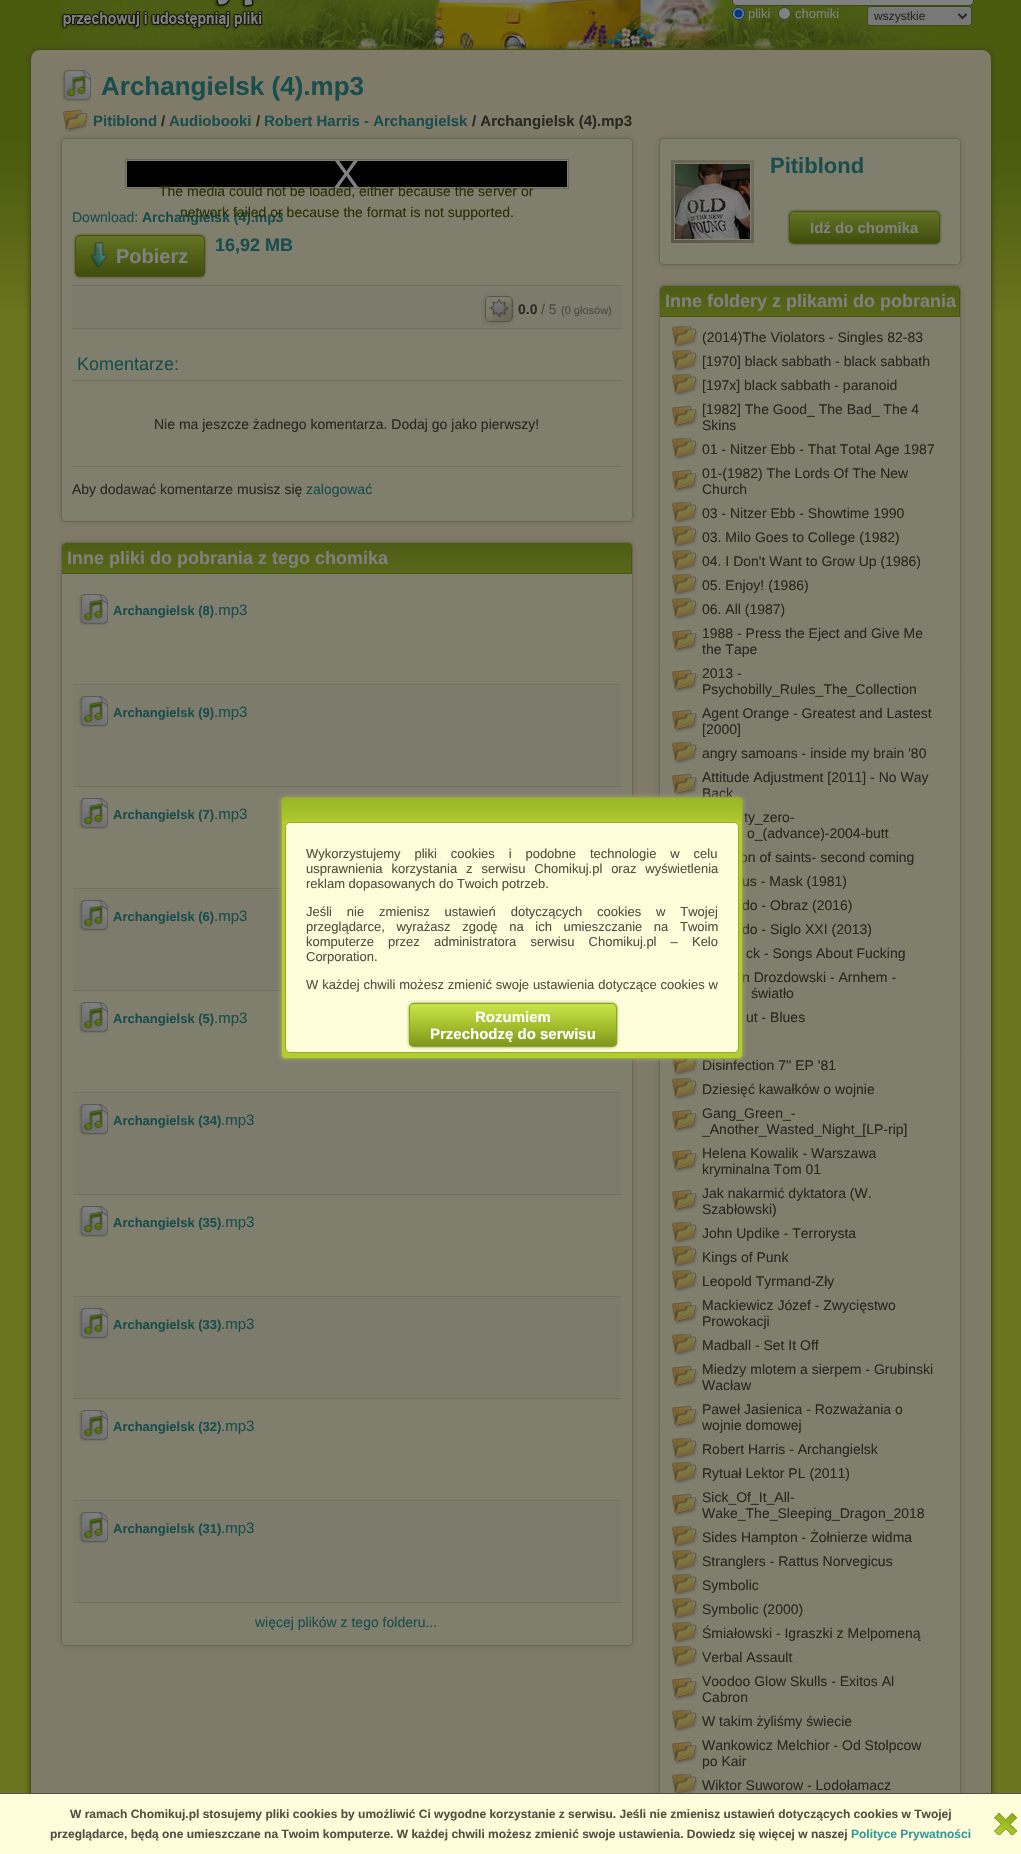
static SkFont makeFont(const char* family, int weight, float size, bool italic = false) {
  SkFontStyle style(weight, SkFontStyle::kNormal_Width,
    italic ? SkFontStyle::kItalic_Slant : SkFontStyle::kUpright_Slant);
  SkFont result(fontMgr->matchFamilyStyle(family, style), size);
  result.setSubpixel(true);
  return result;
}

static void text(SkCanvas* c, const char* s, float x, float y, const SkFont& font, SkColor color) {
  SkPaint ink(SkColor4f::FromColor(color));
  ink.setAntiAlias(true);
  c->drawString(s, x, y, font, ink);
}

static void spacedText(SkCanvas* c, const char* s, float x, float y, const SkFont& font, const SkPaint& ink, float letter, float word) {
  std::vector<SkGlyphID> glyphs(font.countText(s, strlen(s), SkTextEncoding::kUTF8));
  std::vector<float> xs(glyphs.size());
  font.textToGlyphs(s, strlen(s), SkTextEncoding::kUTF8, glyphs);
  font.getXPos(glyphs, xs, x);
  float extra = 0;
  for (size_t i = 0; i < glyphs.size(); i++) {
    xs[i] += extra;
    extra += letter + word * (glyphs[i] == font.unicharToGlyph(' '));
  }
  c->drawTextBlob(SkTextBlob::MakeFromPosHGlyphs(glyphs, xs, y, font), 0, 0, ink);
}

static void box(SkCanvas* c, float l, float t, float r, float b, SkColor color) {
  SkPaint ink(SkColor4f::FromColor(color));
  ink.setAntiAlias(true);
  c->drawRect(SkRect::MakeLTRB(l, t, r, b), ink);
}

static void roundBox(SkCanvas* c, float l, float t, float r, float b, float radius, SkColor color) {
  SkPaint ink(SkColor4f::FromColor(color));
  ink.setAntiAlias(true);
  c->drawRoundRect(SkRect::MakeLTRB(l, t, r, b), radius, radius, ink);
}

static void picture(SkCanvas* c, const char* path, float l, float t, float r, float b) {
  auto image = SkImages::DeferredFromEncodedData(SkData::MakeFromFileName(path));
  c->drawImageRect(image, SkRect::MakeLTRB(l, t, r, b), SkSamplingOptions());
}

void draw(SkCanvas* c) {
  SkPaint paint;
  paint.setAntiAlias(true);
  c->clear(0xff6a751f);
  picture(c, "img_01.png", 0, 0, 1021, 310);
  picture(c, "img_02.png", 62, 0, 940, 49);
  picture(c, "img_03.png", 60, 0, 276, 31);
  paint.setColor(0xff808080);
  c->drawCircle(738.5f, 13.5f, 6, paint);
  paint.setStyle(SkPaint::kStroke_Style);
  paint.setStrokeWidth(1);
  paint.setColor(0xff003b80);
  c->drawCircle(738.5f, 13.5f, 6, paint);
  paint.setStyle(SkPaint::kFill_Style);
  c->drawCircle(738.5f, 13.5f, 4, paint);
  SkFont face1 = makeFont("Liberation Sans", 400, 13);
  text(c, "pliki", 748, 18, face1, 0xff808080);
  paint.setColor(0xff808080);
  c->drawCircle(784.5f, 13.5f, 6, paint);
  paint.setStyle(SkPaint::kStroke_Style);
  paint.setColor(0xff3b3b3b);
  c->drawCircle(784.5f, 13.5f, 6, paint);
  text(c, "chomiki", 795, 18, face1, 0xff808080);
  paint.setStyle(SkPaint::kFill_Style);
  paint.setColor(0xff808080);
  c->drawRoundRect(SkRect::MakeLTRB(732.5f, -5.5f, 973.5f, 5.5f), 4.5f, 4.5f, paint);
  paint.setStyle(SkPaint::kStroke_Style);
  paint.setColor(0xff3e4910);
  c->drawRoundRect(SkRect::MakeLTRB(732.5f, -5.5f, 973.5f, 5.5f), 4.5f, 4.5f, paint);
  paint.setStyle(SkPaint::kFill_Style);
  paint.setColor(0xff787878);
  c->drawRoundRect(SkRect::MakeLTRB(867.5f, 6.5f, 971.5f, 25.5f), 2.5f, 2.5f, paint);
  paint.setStyle(SkPaint::kStroke_Style);
  paint.setColor(0xff3e4910);
  c->drawRoundRect(SkRect::MakeLTRB(867.5f, 6.5f, 971.5f, 25.5f), 2.5f, 2.5f, paint);
  paint.setStrokeWidth(2);
  paint.setColor(0xff292821);
  c->drawPath(SkPathBuilder().moveTo(958.5f, 14).lineTo(962.5f, 18).lineTo(966.5f, 14).detach(), paint);
  SkFont face2 = makeFont("Liberation Sans", 400, 12);
  text(c, "wszystkie", 874, 20, face2, 0xff292821);
  paint.setStyle(SkPaint::kFill_Style);
  paint.setColor(0xff454d13);
  paint.setMaskFilter(SkMaskFilter::MakeBlur(kNormal_SkBlurStyle, 2.5f));
  c->drawRoundRect(SkRect::MakeLTRB(29, 48, 993, 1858), 11, 11, paint);
  paint.setMaskFilter(nullptr);
  paint.setColor(0xff807b69);
  c->drawRoundRect(SkRect::MakeLTRB(30.5f, 49.5f, 991.5f, 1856.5f), 9.5f, 9.5f, paint);
  paint.setStyle(SkPaint::kStroke_Style);
  paint.setStrokeWidth(1);
  paint.setColor(0xff444d13);
  c->drawRoundRect(SkRect::MakeLTRB(30.5f, 49.5f, 991.5f, 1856.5f), 9.5f, 9.5f, paint);
  picture(c, "img_04.png", 61, 70, 91, 102);
  SkFont face3 = makeFont("Liberation Sans", 700, 26);
  text(c, "Archangielsk (4).mp3", 101, 95, face3, 0xff1a4d4d);
  picture(c, "img_05.png", 63, 110, 89, 132);
  SkFont face4 = makeFont("Liberation Sans", 700, 15);
  text(c, "Pitiblond", 93, 126, face4, 0xff1a4d4d);
  text(c, "/", 161, 126, face4, 0xff292821);
  text(c, "Audiobooki", 169, 126, face4, 0xff1a4d4d);
  text(c, "/", 256, 126, face4, 0xff292821);
  text(c, "Robert Harris - Archangielsk", 264, 126, face4, 0xff1a4d4d);
  text(c, "/ Archangielsk (4).mp3", 472, 126, face4, 0xff292821);
  paint.setStyle(SkPaint::kFill_Style);
  paint.setColor(0xff726e5e);
  paint.setMaskFilter(SkMaskFilter::MakeBlur(kNormal_SkBlurStyle, 2.5f));
  c->drawRoundRect(SkRect::MakeLTRB(60, 137, 634, 523), 6, 6, paint);
  paint.setMaskFilter(nullptr);
  paint.setColor(0xff807e6d);
  c->drawRoundRect(SkRect::MakeLTRB(61.5f, 138.5f, 632.5f, 521.5f), 4.5f, 4.5f, paint);
  paint.setStyle(SkPaint::kStroke_Style);
  paint.setColor(0xff6b6758);
  c->drawRoundRect(SkRect::MakeLTRB(61.5f, 138.5f, 632.5f, 521.5f), 4.5f, 4.5f, paint);
  paint.setColor(0xff686658);
  c->drawRect(SkRect::MakeLTRB(125.5f, 159.5f, 568.5f, 188.5f), paint);
  box(c, 127, 161, 567, 187, 0xff000000);
  SkFont face5 = makeFont("Liberation Sans", 400, 40);
  text(c, "X", 333, 188, face5, 0xff808080);
  SkFont face6 = makeFont("Liberation Sans", 400, 14);
  text(c, "The media could not be loaded, either because the server or", 159, 196, face6, 0xff283103);
  SkFont face7 = makeFont("Liberation Sans", 700, 14);
  text(c, "Archangielsk (4).mp3", 142, 222, face7, 0xff1a4d4d);
  text(c, "network failed or because the format is not supported.", 180, 217, face6, 0xff283103);
  text(c, "Download:", 72, 222, face6, 0xff1a4d4d);
  SkFont face8 = makeFont("Liberation Sans", 700, 18);
  text(c, "16,92 MB", 215, 251, face8, 0xff1a4d4d);
  paint.setStyle(SkPaint::kFill_Style);
  paint.setColor(0xff454d13);
  paint.setMaskFilter(SkMaskFilter::MakeBlur(kNormal_SkBlurStyle, 1.5f));
  c->drawRoundRect(SkRect::MakeLTRB(75, 235, 205, 277), 5, 5, paint);
  paint.setMaskFilter(nullptr);
  c->save();
  c->clipPath(SkPathBuilder().moveTo(80, 235).lineTo(200, 235).cubicTo(203, 235, 205, 237, 205, 240).lineTo(205, 272).cubicTo(205, 275, 203, 277, 200, 277).lineTo(80, 277).cubicTo(77, 277, 75, 275, 75, 272).lineTo(75, 240).cubicTo(75, 237, 77, 235, 80, 235).close().detach(), true);
  {
    const SkColor colors[] = {0xff637123, 0xff637123, 0xff4e5c15, 0xff455312, 0xff3f4b10};
    const float stops[] = {0, 0.06f, 0.61f, 0.83f, 1};
    const SkPoint ends[] = {{140, 236}, {140, 276}};
    paint.setShader(SkGradientShader::MakeLinear(ends, colors, stops, 5, SkTileMode::kClamp));
    paint.setAlpha(255);
  }
  c->drawRect(SkRect::MakeLTRB(75, 236, 205, 276), paint);
  c->restore();
  paint.setStyle(SkPaint::kStroke_Style);
  paint.setShader(nullptr);
  paint.setColor(0xff455112);
  c->drawRoundRect(SkRect::MakeLTRB(75.5f, 235.5f, 204.5f, 276.5f), 4.5f, 4.5f, paint);
  picture(c, "img_06.png", 90, 242, 108, 268);
  SkFont face9 = makeFont("Liberation Sans", 700, 20);
  text(c, "Pobierz", 116, 263, face9, 0xff808080);
  box(c, 72, 286, 622, 328, 0xff7d7b6b);
  box(c, 72, 285, 622, 286, 0xff736f5e);
  box(c, 72, 328, 622, 329, 0xff736f5e);
  paint.setStyle(SkPaint::kFill_Style);
  paint.setColor(0xff6c6a5c);
  paint.setMaskFilter(SkMaskFilter::MakeBlur(kNormal_SkBlurStyle, 2.5f));
  c->drawRoundRect(SkRect::MakeLTRB(484, 297, 512, 323), 5, 5, paint);
  paint.setMaskFilter(nullptr);
  roundBox(c, 485, 296, 513, 322, 5, 0xff7f7d6f);
  picture(c, "img_07.png", 487, 299, 512, 321);
  paint.setStyle(SkPaint::kStroke_Style);
  paint.setColor(0xff565549);
  c->drawRoundRect(SkRect::MakeLTRB(485.5f, 296.5f, 512.5f, 321.5f), 4.5f, 4.5f, paint);
  picture(c, "img_08.png", 489, 299, 509, 318);
  text(c, "0.0", 518, 314, face7, 0xff2b2b2b);
  text(c, "/ 5", 541, 314, face6, 0xff4a493f);
  SkFont face10 = makeFont("Liberation Sans", 400, 11);
  text(c, "(0 głosów)", 561, 314, face10, 0xff4a493f);
  box(c, 72, 380, 622, 381, 0xff736f5e);
  SkFont face11 = makeFont("Liberation Sans", 400, 18);
  text(c, "Komentarze:", 77, 370, face11, 0xff1a4d4d);
  box(c, 72, 466, 622, 467, 0xff736f5e);
  text(c, "Nie ma jeszcze żadnego komentarza. Dodaj go jako pierwszy!", 154, 429, face6, 0xff292821);
  text(c, "Aby dodawać komentarze musisz się", 72, 494, face6, 0xff292821);
  text(c, "zalogować", 306, 494, face6, 0xff1a4d4d);
  paint.setStyle(SkPaint::kFill_Style);
  paint.setColor(0xff726e5e);
  paint.setMaskFilter(SkMaskFilter::MakeBlur(kNormal_SkBlurStyle, 2.5f));
  c->drawRoundRect(SkRect::MakeLTRB(658, 137, 962, 266), 6, 6, paint);
  paint.setMaskFilter(nullptr);
  paint.setColor(0xff807e6d);
  c->drawRoundRect(SkRect::MakeLTRB(659.5f, 138.5f, 960.5f, 264.5f), 4.5f, 4.5f, paint);
  paint.setStyle(SkPaint::kStroke_Style);
  paint.setColor(0xff6b6758);
  c->drawRoundRect(SkRect::MakeLTRB(659.5f, 138.5f, 960.5f, 264.5f), 4.5f, 4.5f, paint);
  picture(c, "img_10.png", 675, 164, 750, 239);
  picture(c, "img_09.png", 671, 160, 754, 243);
  SkFont face12 = makeFont("Liberation Sans", 700, 22);
  text(c, "Pitiblond", 770, 173, face12, 0xff1a4d4d);
  paint.setStyle(SkPaint::kFill_Style);
  paint.setColor(0xff454d13);
  paint.setMaskFilter(SkMaskFilter::MakeBlur(kNormal_SkBlurStyle, 1.5f));
  c->drawRoundRect(SkRect::MakeLTRB(789, 211, 940, 244), 5, 5, paint);
  paint.setMaskFilter(nullptr);
  c->save();
  c->clipPath(SkPathBuilder().moveTo(794, 211).lineTo(935, 211).cubicTo(938, 211, 940, 213, 940, 216).lineTo(940, 239).cubicTo(940, 242, 938, 244, 935, 244).lineTo(794, 244).cubicTo(791, 244, 789, 242, 789, 239).lineTo(789, 216).cubicTo(789, 213, 791, 211, 794, 211).close().detach(), true);
  {
    const SkColor colors[] = {0xff637123, 0xff637123, 0xff4e5c15, 0xff455312, 0xff3f4b10};
    const float stops[] = {0, 0.06f, 0.61f, 0.83f, 1};
    const SkPoint ends[] = {{865, 212}, {865, 243}};
    paint.setShader(SkGradientShader::MakeLinear(ends, colors, stops, 5, SkTileMode::kClamp));
    paint.setAlpha(255);
  }
  c->drawRect(SkRect::MakeLTRB(789, 212, 940, 243), paint);
  c->restore();
  paint.setStyle(SkPaint::kStroke_Style);
  paint.setShader(nullptr);
  paint.setColor(0xff455112);
  c->drawRoundRect(SkRect::MakeLTRB(789.5f, 211.5f, 939.5f, 243.5f), 4.5f, 4.5f, paint);
  text(c, "Idź do chomika", 810, 233, face4, 0xff808080);
  paint.setStyle(SkPaint::kFill_Style);
  paint.setColor(0xff726e5e);
  paint.setMaskFilter(SkMaskFilter::MakeBlur(kNormal_SkBlurStyle, 2.5f));
  c->drawRoundRect(SkRect::MakeLTRB(60, 541, 634, 1647), 6, 6, paint);
  paint.setMaskFilter(nullptr);
  paint.setColor(0xff807e6d);
  c->drawRoundRect(SkRect::MakeLTRB(61.5f, 542.5f, 632.5f, 1645.5f), 4.5f, 4.5f, paint);
  paint.setStyle(SkPaint::kStroke_Style);
  paint.setColor(0xff6b6758);
  c->drawRoundRect(SkRect::MakeLTRB(61.5f, 542.5f, 632.5f, 1645.5f), 4.5f, 4.5f, paint);
  c->save();
  c->clipPath(SkPathBuilder().moveTo(66, 542).lineTo(627, 542).cubicTo(630, 542, 632, 544, 632, 547).lineTo(632, 574).lineTo(61, 574).lineTo(61, 547).cubicTo(61, 544, 63, 542, 66, 542).close().detach(), true);
  paint.setStyle(SkPaint::kFill_Style);
  {
    const SkColor colors[] = {0xff4d5c14, 0xff596719};
    const float stops[] = {0, 1};
    const SkPoint ends[] = {{347, 543}, {347, 573}};
    paint.setShader(SkGradientShader::MakeLinear(ends, colors, stops, 2, SkTileMode::kClamp));
    paint.setAlpha(255);
  }
  c->drawPath(SkPathBuilder().moveTo(66, 543).lineTo(628, 543).cubicTo(630, 543, 632, 545, 632, 547).lineTo(632, 573).lineTo(62, 573).lineTo(62, 547).cubicTo(62, 545, 64, 543, 66, 543).close().detach(), paint);
  c->restore();
  paint.setShader(nullptr);
  paint.setColor(0xff495613);
  c->drawPath(SkPathBuilder().moveTo(632, 574).lineTo(632, 556).cubicTo(632, 551, 634, 543, 627, 543).cubicTo(629, 543, 631, 545, 631, 547).lineTo(631, 573).lineTo(62, 573).lineTo(62, 574).close().detach(), paint);
  text(c, "Inne pliki do pobrania z tego chomika", 67, 564, face8, 0xff808080);
  box(c, 73, 684, 621, 685, 0xff736f5e);
  picture(c, "img_11.png", 78, 594, 108, 625);
  SkFont face13 = makeFont("Liberation Sans", 700, 13);
  text(c, "Archangielsk (8)", 113, 615, face13, 0xff1a4d4d);
  SkFont face14 = makeFont("Liberation Sans", 400, 15);
  text(c, ".mp3", 214, 615, face14, 0xff1a4d4d);
  box(c, 73, 686, 621, 786, 0xff7d7b6b);
  box(c, 73, 786, 621, 787, 0xff736f5e);
  picture(c, "img_12.png", 78, 696, 108, 727);
  text(c, "Archangielsk (9)", 113, 717, face13, 0xff1a4d4d);
  text(c, ".mp3", 214, 717, face14, 0xff1a4d4d);
  box(c, 73, 888, 281, 889, 0xff736f5e);
  picture(c, "img_11.png", 78, 798, 108, 829);
  text(c, "Archangielsk (7)", 113, 819, face13, 0xff1a4d4d);
  text(c, ".mp3", 214, 819, face14, 0xff1a4d4d);
  box(c, 73, 890, 281, 990, 0xff7d7b6b);
  box(c, 73, 990, 281, 991, 0xff736f5e);
  picture(c, "img_12.png", 78, 900, 108, 931);
  text(c, "Archangielsk (6)", 113, 921, face13, 0xff1a4d4d);
  text(c, ".mp3", 214, 921, face14, 0xff1a4d4d);
  box(c, 73, 1092, 621, 1093, 0xff736f5e);
  picture(c, "img_11.png", 78, 1002, 108, 1033);
  text(c, "Archangielsk (5)", 113, 1023, face13, 0xff1a4d4d);
  text(c, ".mp3", 214, 1023, face14, 0xff1a4d4d);
  box(c, 73, 1094, 621, 1194, 0xff7d7b6b);
  box(c, 73, 1194, 621, 1195, 0xff736f5e);
  picture(c, "img_12.png", 78, 1104, 108, 1135);
  text(c, "Archangielsk (34)", 113, 1125, face13, 0xff1a4d4d);
  text(c, ".mp3", 221, 1125, face14, 0xff1a4d4d);
  box(c, 73, 1296, 621, 1297, 0xff736f5e);
  picture(c, "img_11.png", 78, 1206, 108, 1237);
  text(c, "Archangielsk (35)", 113, 1227, face13, 0xff1a4d4d);
  text(c, ".mp3", 221, 1227, face14, 0xff1a4d4d);
  box(c, 73, 1298, 621, 1398, 0xff7d7b6b);
  box(c, 73, 1398, 621, 1399, 0xff736f5e);
  picture(c, "img_12.png", 78, 1308, 108, 1339);
  text(c, "Archangielsk (33)", 113, 1329, face13, 0xff1a4d4d);
  text(c, ".mp3", 221, 1329, face14, 0xff1a4d4d);
  box(c, 73, 1500, 621, 1501, 0xff736f5e);
  picture(c, "img_11.png", 78, 1410, 108, 1441);
  text(c, "Archangielsk (32)", 113, 1431, face13, 0xff1a4d4d);
  text(c, ".mp3", 221, 1431, face14, 0xff1a4d4d);
  box(c, 73, 1502, 621, 1602, 0xff7d7b6b);
  box(c, 73, 1602, 621, 1603, 0xff736f5e);
  picture(c, "img_12.png", 78, 1512, 108, 1543);
  text(c, "Archangielsk (31)", 113, 1533, face13, 0xff1a4d4d);
  text(c, ".mp3", 221, 1533, face14, 0xff1a4d4d);
  text(c, "więcej plików z tego folderu...", 255, 1627, face6, 0xff1a4d4d);
  paint.setColor(0xff726e5e);
  paint.setMaskFilter(SkMaskFilter::MakeBlur(kNormal_SkBlurStyle, 2.5f));
  c->drawRoundRect(SkRect::MakeLTRB(658, 284, 962, 1815), 6, 6, paint);
  paint.setMaskFilter(nullptr);
  paint.setColor(0xff807e6d);
  c->drawRoundRect(SkRect::MakeLTRB(659.5f, 285.5f, 960.5f, 1813.5f), 4.5f, 4.5f, paint);
  paint.setStyle(SkPaint::kStroke_Style);
  paint.setColor(0xff6b6758);
  c->drawRoundRect(SkRect::MakeLTRB(659.5f, 285.5f, 960.5f, 1813.5f), 4.5f, 4.5f, paint);
  c->save();
  c->clipPath(SkPathBuilder().moveTo(664, 285).lineTo(955, 285).cubicTo(958, 285, 960, 287, 960, 290).lineTo(960, 317).lineTo(659, 317).lineTo(659, 290).cubicTo(659, 287, 661, 285, 664, 285).close().detach(), true);
  paint.setStyle(SkPaint::kFill_Style);
  {
    const SkColor colors[] = {0xff4d5c14, 0xff596719};
    const float stops[] = {0, 1};
    const SkPoint ends[] = {{810, 286}, {810, 316}};
    paint.setShader(SkGradientShader::MakeLinear(ends, colors, stops, 2, SkTileMode::kClamp));
    paint.setAlpha(255);
  }
  c->drawPath(SkPathBuilder().moveTo(664, 286).lineTo(956, 286).cubicTo(958, 286, 960, 288, 960, 290).lineTo(960, 316).lineTo(660, 316).lineTo(660, 290).cubicTo(660, 288, 662, 286, 664, 286).close().detach(), paint);
  c->restore();
  paint.setShader(nullptr);
  paint.setColor(0xff495613);
  c->drawPath(SkPathBuilder().moveTo(960, 317).lineTo(960, 299).cubicTo(960, 294, 962, 286, 955, 286).cubicTo(957, 286, 959, 288, 959, 290).lineTo(959, 316).lineTo(660, 316).lineTo(660, 317).close().detach(), paint);
  text(c, "Inne foldery z plikami do pobrania", 665, 307, face8, 0xff808080);
  picture(c, "img_13.png", 672, 326, 698, 348);
  text(c, "(2014)The Violators - Singles 82-83", 702, 342, face6, 0xff292821);
  picture(c, "img_13.png", 672, 350, 698, 372);
  text(c, "[1970] black sabbath - black sabbath", 702, 366, face6, 0xff292821);
  picture(c, "img_13.png", 672, 374, 698, 396);
  text(c, "[197x] black sabbath - paranoid", 702, 390, face6, 0xff292821);
  picture(c, "img_14.png", 672, 406, 698, 428);
  text(c, "[1982] The Good_ The Bad_ The 4", 702, 414, face6, 0xff292821);
  text(c, "Skins", 702, 430, face6, 0xff292821);
  picture(c, "img_13.png", 672, 438, 698, 460);
  text(c, "01 - Nitzer Ebb - That Total Age 1987", 702, 454, face6, 0xff292821);
  picture(c, "img_14.png", 672, 470, 698, 492);
  text(c, "01-(1982) The Lords Of The New", 702, 478, face6, 0xff292821);
  text(c, "Church", 702, 494, face6, 0xff292821);
  picture(c, "img_13.png", 672, 502, 698, 524);
  text(c, "03 - Nitzer Ebb - Showtime 1990", 702, 518, face6, 0xff292821);
  picture(c, "img_13.png", 672, 526, 698, 548);
  text(c, "03. Milo Goes to College (1982)", 702, 542, face6, 0xff292821);
  picture(c, "img_13.png", 672, 550, 698, 572);
  text(c, "04. I Don't Want to Grow Up (1986)", 702, 566, face6, 0xff292821);
  picture(c, "img_13.png", 672, 574, 698, 596);
  text(c, "05. Enjoy! (1986)", 702, 590, face6, 0xff292821);
  picture(c, "img_13.png", 672, 598, 698, 620);
  text(c, "06. All (1987)", 702, 614, face6, 0xff292821);
  picture(c, "img_14.png", 672, 630, 698, 652);
  text(c, "1988 - Press the Eject and Give Me", 702, 638, face6, 0xff292821);
  text(c, "the Tape", 702, 654, face6, 0xff292821);
  picture(c, "img_14.png", 672, 670, 698, 692);
  text(c, "2013 -", 702, 678, face6, 0xff292821);
  text(c, "Psychobilly_Rules_The_Collection", 702, 694, face6, 0xff292821);
  picture(c, "img_14.png", 672, 710, 698, 732);
  text(c, "Agent Orange - Greatest and Lastest", 702, 718, face6, 0xff292821);
  text(c, "[2000]", 702, 734, face6, 0xff292821);
  picture(c, "img_13.png", 672, 742, 698, 764);
  text(c, "angry samoans - inside my brain '80", 702, 758, face6, 0xff292821);
  picture(c, "img_14.png", 672, 774, 698, 796);
  text(c, "Attitude Adjustment [2011] - No Way", 702, 782, face6, 0xff292821);
  text(c, "Back", 702, 798, face6, 0xff292821);
  text(c, "ty_zero-", 744, 822, face6, 0xff292821);
  text(c, "o_(advance)-2004-butt", 747, 838, face6, 0xff292821);
  text(c, "on of saints- second coming", 740, 862, face6, 0xff292821);
  text(c, "us - Mask (1981)", 742, 886, face6, 0xff292821);
  text(c, "do - Obraz (2016)", 742, 910, face6, 0xff292821);
  text(c, "do - Siglo XXI (2013)", 742, 934, face6, 0xff292821);
  text(c, "ck - Songs About Fucking", 746, 958, face6, 0xff292821);
  text(c, "n Drozdowski - Arnhem -", 742, 982, face6, 0xff292821);
  text(c, "światło", 751, 998, face6, 0xff292821);
  text(c, "ut - Blues", 746, 1022, face6, 0xff292821);
  picture(c, "img_15.png", 672, 1059, 698, 1076);
  text(c, "Disinfection 7'' EP '81", 702, 1070, face6, 0xff292821);
  picture(c, "img_13.png", 672, 1078, 698, 1100);
  text(c, "Dziesięć kawałków o wojnie", 702, 1094, face6, 0xff292821);
  picture(c, "img_14.png", 672, 1110, 698, 1132);
  text(c, "Gang_Green_-", 702, 1118, face6, 0xff292821);
  text(c, "_Another_Wasted_Night_[LP-rip]", 702, 1134, face6, 0xff292821);
  picture(c, "img_14.png", 672, 1150, 698, 1172);
  text(c, "Helena Kowalik - Warszawa", 702, 1158, face6, 0xff292821);
  text(c, "kryminalna Tom 01", 702, 1174, face6, 0xff292821);
  picture(c, "img_14.png", 672, 1190, 698, 1212);
  text(c, "Jak nakarmić dyktatora (W.", 702, 1198, face6, 0xff292821);
  text(c, "Szabłowski)", 702, 1214, face6, 0xff292821);
  picture(c, "img_13.png", 672, 1222, 698, 1244);
  text(c, "John Updike - Terrorysta", 702, 1238, face6, 0xff292821);
  picture(c, "img_13.png", 672, 1246, 698, 1268);
  text(c, "Kings of Punk", 702, 1262, face6, 0xff292821);
  picture(c, "img_13.png", 672, 1270, 698, 1292);
  text(c, "Leopold Tyrmand-Zły", 702, 1286, face6, 0xff292821);
  picture(c, "img_14.png", 672, 1302, 698, 1324);
  text(c, "Mackiewicz Józef - Zwycięstwo", 702, 1310, face6, 0xff292821);
  text(c, "Prowokacji", 702, 1326, face6, 0xff292821);
  picture(c, "img_13.png", 672, 1334, 698, 1356);
  text(c, "Madball - Set It Off", 702, 1350, face6, 0xff292821);
  picture(c, "img_14.png", 672, 1366, 698, 1388);
  text(c, "Miedzy mlotem a sierpem - Grubinski", 702, 1374, face6, 0xff292821);
  text(c, "Wacław", 702, 1390, face6, 0xff292821);
  picture(c, "img_14.png", 672, 1406, 698, 1428);
  text(c, "Paweł Jasienica - Rozważania o", 702, 1414, face6, 0xff292821);
  text(c, "wojnie domowej", 702, 1430, face6, 0xff292821);
  picture(c, "img_13.png", 672, 1438, 698, 1460);
  text(c, "Robert Harris - Archangielsk", 702, 1454, face6, 0xff292821);
  picture(c, "img_13.png", 672, 1462, 698, 1484);
  text(c, "Rytuał Lektor PL (2011)", 702, 1478, face6, 0xff292821);
  picture(c, "img_14.png", 672, 1494, 698, 1516);
  text(c, "Sick_Of_It_All-", 702, 1502, face6, 0xff292821);
  text(c, "Wake_The_Sleeping_Dragon_2018", 702, 1518, face6, 0xff292821);
  picture(c, "img_13.png", 672, 1526, 698, 1548);
  text(c, "Sides Hampton - Żołnierze widma", 702, 1542, face6, 0xff292821);
  picture(c, "img_13.png", 672, 1550, 698, 1572);
  text(c, "Stranglers - Rattus Norvegicus", 702, 1566, face6, 0xff292821);
  picture(c, "img_13.png", 672, 1574, 698, 1596);
  text(c, "Symbolic", 702, 1590, face6, 0xff292821);
  picture(c, "img_13.png", 672, 1598, 698, 1620);
  text(c, "Symbolic (2000)", 702, 1614, face6, 0xff292821);
  picture(c, "img_13.png", 672, 1622, 698, 1644);
  text(c, "Śmiałowski - Igraszki z Melpomeną", 702, 1638, face6, 0xff292821);
  picture(c, "img_13.png", 672, 1646, 698, 1668);
  text(c, "Verbal Assault", 702, 1662, face6, 0xff292821);
  picture(c, "img_14.png", 672, 1678, 698, 1700);
  text(c, "Voodoo Glow Skulls - Exitos Al", 702, 1686, face6, 0xff292821);
  text(c, "Cabron", 702, 1702, face6, 0xff292821);
  picture(c, "img_13.png", 672, 1710, 698, 1732);
  text(c, "W takim żyliśmy świecie", 702, 1726, face6, 0xff292821);
  picture(c, "img_14.png", 672, 1742, 698, 1764);
  text(c, "Wankowicz Melchior - Od Stolpcow", 702, 1750, face6, 0xff292821);
  text(c, "po Kair", 702, 1766, face6, 0xff292821);
  picture(c, "img_16.png", 672, 1774, 698, 1793);
  text(c, "Wiktor Suworow - Lodołamacz", 702, 1790, face6, 0xff292821);
  paint.setColor(0xffa39d85);
  paint.setMaskFilter(SkMaskFilter::MakeBlur(kNormal_SkBlurStyle, 2.5f));
  c->drawRoundRect(SkRect::MakeLTRB(281, 797, 743, 1059), 5, 5, paint);
  paint.setMaskFilter(nullptr);
  roundBox(c, 281, 797, 743, 1059, 5, 0xffb2cd31);
  picture(c, "img_17.png", 281, 798, 743, 821);
  paint.setStyle(SkPaint::kStroke_Style);
  paint.setColor(0xff91ac26);
  c->drawRoundRect(SkRect::MakeLTRB(281.5f, 797.5f, 742.5f, 1058.5f), 4.5f, 4.5f, paint);
  paint.setStyle(SkPaint::kFill_Style);
  paint.setColor(0xfffffcda);
  c->drawRoundRect(SkRect::MakeLTRB(285.5f, 822.5f, 738.5f, 1052.5f), 4.5f, 4.5f, paint);
  paint.setStyle(SkPaint::kStroke_Style);
  paint.setColor(0xff91ac26);
  c->drawRoundRect(SkRect::MakeLTRB(285.5f, 822.5f, 738.5f, 1052.5f), 4.5f, 4.5f, paint);
  paint.setStyle(SkPaint::kFill_Style);
  paint.setColor(0xff524f42);
  spacedText(c, "Wykorzystujemy pliki cookies i podobne technologie w celu", 306, 858, face1, paint, 0, 10.25f);
  spacedText(c, "usprawnienia korzystania z serwisu Chomikuj.pl oraz wyświetlenia", 306, 873, face1, paint, 0, 5.25f);
  text(c, "reklam dopasowanych do Twoich potrzeb.", 306, 888, face1, 0xff524f42);
  spacedText(c, "Jeśli nie zmienisz ustawień dotyczących cookies w Twojej", 306, 916, face1, paint, 0, 11.25f);
  spacedText(c, "przeglądarce, wyrażasz zgodę na ich umieszczanie na Twoim", 306, 931, face1, paint, 0, 8);
  spacedText(c, "komputerze przez administratora serwisu Chomikuj.pl – Kelo", 306, 946, face1, paint, 0, 10.5f);
  text(c, "Corporation.", 306, 961, face1, 0xff524f42);
  spacedText(c, "W każdej chwili możesz zmienić swoje ustawienia dotyczące cookies w", 306, 989, face1, paint, 0, 0.25f);
  paint.setColor(0xff899926);
  paint.setMaskFilter(SkMaskFilter::MakeBlur(kNormal_SkBlurStyle, 1.5f));
  c->drawRoundRect(SkRect::MakeLTRB(409, 1003, 617, 1047), 5, 5, paint);
  paint.setMaskFilter(nullptr);
  c->save();
  c->clipPath(SkPathBuilder().moveTo(414, 1003).lineTo(612, 1003).cubicTo(615, 1003, 617, 1005, 617, 1008).lineTo(617, 1042).cubicTo(617, 1045, 615, 1047, 612, 1047).lineTo(414, 1047).cubicTo(411, 1047, 409, 1045, 409, 1042).lineTo(409, 1008).cubicTo(409, 1005, 411, 1003, 414, 1003).close().detach(), true);
  {
    const SkColor colors[] = {0xffc6e146, 0xffc6e146, 0xff9cb829, 0xff8aa524, 0xff7d9520};
    const float stops[] = {0, 0.06f, 0.61f, 0.83f, 1};
    const SkPoint ends[] = {{513, 1004}, {513, 1046}};
    paint.setShader(SkGradientShader::MakeLinear(ends, colors, stops, 5, SkTileMode::kClamp));
    paint.setAlpha(255);
  }
  c->drawRect(SkRect::MakeLTRB(409, 1004, 617, 1046), paint);
  c->restore();
  paint.setStyle(SkPaint::kStroke_Style);
  paint.setShader(nullptr);
  paint.setColor(0xff89a224);
  c->drawRoundRect(SkRect::MakeLTRB(409.5f, 1003.5f, 616.5f, 1046.5f), 4.5f, 4.5f, paint);
  text(c, "Rozumiem", 475, 1022, face4, 0xffffffff);
  text(c, "Przechodzę do serwisu", 430, 1039, face4, 0xffffffff);
  box(c, 0, 1794, 1021, 1854, 0xfffffcda);
  box(c, 0, 1793, 1021, 1794, 0xff524f42);
  SkFont face15 = makeFont("Liberation Sans", 700, 12);
  text(c, "W ramach Chomikuj.pl stosujemy pliki cookies by umożliwić Ci wygodne korzystanie z serwisu. Jeśli nie zmienisz ustawień dotyczących cookies w Twojej", 70, 1818, face15, 0xff524f42);
  picture(c, "img_18.png", 994, 1813, 1017, 1835);
  text(c, "przeglądarce, będą one umieszczane na Twoim komputerze. W każdej chwili możesz zmienić swoje ustawienia. Dowiedz się więcej w naszej", 50, 1838, face15, 0xff524f42);
  text(c, "Polityce Prywatności", 851, 1838, face15, 0xff339999);
}
